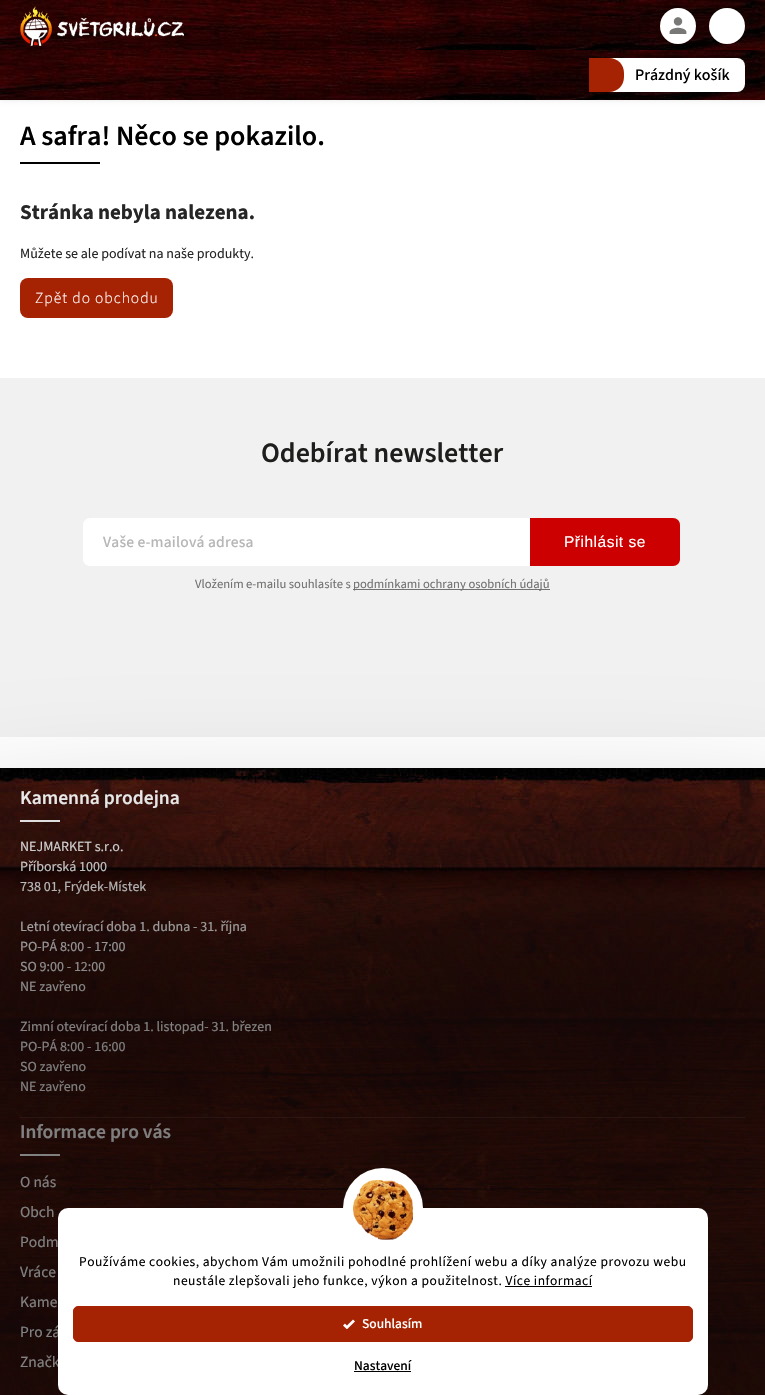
static SkFont makeFont(const char* family, int weight, float size, bool italic = false) {
  SkFontStyle style(weight, SkFontStyle::kNormal_Width,
    italic ? SkFontStyle::kItalic_Slant : SkFontStyle::kUpright_Slant);
  SkFont result(fontMgr->matchFamilyStyle(family, style), size);
  result.setSubpixel(true);
  return result;
}

static void text(SkCanvas* c, const char* s, float x, float y, const SkFont& font, SkColor color) {
  SkPaint ink(SkColor4f::FromColor(color));
  ink.setAntiAlias(true);
  c->drawString(s, x, y, font, ink);
}

static void spacedText(SkCanvas* c, const char* s, float x, float y, const SkFont& font, const SkPaint& ink, float letter, float word) {
  std::vector<SkGlyphID> glyphs(font.countText(s, strlen(s), SkTextEncoding::kUTF8));
  std::vector<float> xs(glyphs.size());
  font.textToGlyphs(s, strlen(s), SkTextEncoding::kUTF8, glyphs);
  font.getXPos(glyphs, xs, x);
  float extra = 0;
  for (size_t i = 0; i < glyphs.size(); i++) {
    xs[i] += extra;
    extra += letter + word * (glyphs[i] == font.unicharToGlyph(' '));
  }
  c->drawTextBlob(SkTextBlob::MakeFromPosHGlyphs(glyphs, xs, y, font), 0, 0, ink);
}

static void box(SkCanvas* c, float l, float t, float r, float b, SkColor color) {
  SkPaint ink(SkColor4f::FromColor(color));
  ink.setAntiAlias(true);
  c->drawRect(SkRect::MakeLTRB(l, t, r, b), ink);
}

static void roundBox(SkCanvas* c, float l, float t, float r, float b, float radius, SkColor color) {
  SkPaint ink(SkColor4f::FromColor(color));
  ink.setAntiAlias(true);
  c->drawRoundRect(SkRect::MakeLTRB(l, t, r, b), radius, radius, ink);
}

static void picture(SkCanvas* c, const char* path, float l, float t, float r, float b) {
  auto image = SkImages::DeferredFromEncodedData(SkData::MakeFromFileName(path));
  c->drawImageRect(image, SkRect::MakeLTRB(l, t, r, b), SkSamplingOptions());
}

void draw(SkCanvas* c) {
  SkPaint paint;
  paint.setAntiAlias(true);
  c->clear(0xffffffff);
  paint.setColor(0x1a000000);
  paint.setMaskFilter(SkMaskFilter::MakeBlur(kNormal_SkBlurStyle, 2.5f));
  c->drawRect(SkRect::MakeLTRB(0, 50, 765, 100), paint);
  paint.setMaskFilter(nullptr);
  picture(c, "img_01.png", 0, 0, 765, 50);
  picture(c, "img_02.png", 20, 6, 184, 46);
  paint.setColor(0xffffffff);
  c->drawCircle(678, 26, 18, paint);
  picture(c, "img_03.png", 669, 17, 687, 34);
  c->drawCircle(727, 26, 18, paint);
  picture(c, "img_01.png", 0, 50, 765, 100);
  roundBox(c, 590, 58, 745, 92, 8, 0xffffffff);
  paint.setColor(0xffa52202);
  c->drawPath(SkPathBuilder().moveTo(589, 58).lineTo(609, 58).cubicTo(617.5f, 58, 624, 64.5f, 624, 73).lineTo(624, 77).cubicTo(624, 85.5f, 617.5f, 92, 609, 92).lineTo(589, 92).close().detach(), paint);
  SkFont face1 = makeFont("Source Sans 3", 500, 16);
  text(c, "Prázdný košík", 635, 80, face1, 0xff000000);
  SkFont face2 = makeFont("Source Sans 3", 600, 28);
  text(c, "A safra! Něco se pokazilo.", 20, 145, face2, 0xff000000);
  box(c, 20, 162, 100, 164, 0xff000000);
  SkFont face3 = makeFont("Source Sans 3", 700, 21);
  text(c, "Stránka nebyla nalezena.", 20, 219, face3, 0xff262626);
  SkFont face4 = makeFont("Source Sans 3", 400, 14);
  text(c, "Můžete se ale podívat na naše produkty.", 20, 258, face4, 0xff262626);
  roundBox(c, 20, 278, 173, 318, 8, 0xffa52202);
  SkFont face5 = makeFont("Source Sans 3", 300, 15.5f);
  paint.setColor(0xffffffff);
  spacedText(c, "Zpět do obchodu", 35, 303, face5, paint, 1, 0);
  box(c, 0, 378, 765, 737, 0xfff1f1f1);
  text(c, "Odebírat newsletter", 261, 462, face2, 0xff1e1e1c);
  c->drawPath(SkPathBuilder().moveTo(90, 518).lineTo(533, 518).lineTo(533, 566).lineTo(90, 566).cubicTo(86, 566, 83, 563, 83, 559).lineTo(83, 525).cubicTo(83, 521, 86, 518, 90, 518).close().detach(), paint);
  SkFont face6 = makeFont("Source Sans 3", 500, 15.5f);
  paint.setColor(0xffb6b6b6);
  spacedText(c, "Vaše e-mailová adresa", 103, 547, face6, paint, 0.2f, 0);
  paint.setColor(0xffcc0000);
  c->drawPath(SkPathBuilder().moveTo(530, 518).lineTo(673, 518).cubicTo(677, 518, 680, 521, 680, 525).lineTo(680, 559).cubicTo(680, 563, 677, 566, 673, 566).lineTo(530, 566).close().detach(), paint);
  SkFont face7 = makeFont("Liberation Sans", 400, 15.5f);
  paint.setColor(0xffffffff);
  spacedText(c, "Přihlásit se", 564, 547, face7, paint, 0.5f, 0);
  SkFont face8 = makeFont("Source Sans 3", 400, 12.6f);
  text(c, "Vložením e-mailu souhlasíte s", 195, 588, face8, 0xff727271);
  box(c, 353, 589, 550, 590, 0xff727271);
  text(c, "podmínkami ochrany osobních údajů", 353, 588, face8, 0xff727271);
  picture(c, "img_04.png", 0, 768, 765, 1395);
  box(c, 20, 1117, 745, 1118, 0x1affffff);
  SkFont face9 = makeFont("Source Sans 3", 600, 19.5f);
  text(c, "Kamenná prodejna", 20, 804, face9, 0xffffffff);
  box(c, 20, 820, 60, 822, 0xffffffff);
  text(c, "NEJMARKET s.r.o.", 20, 851, face4, 0xffffffff);
  text(c, "Příborská 1000", 20, 871, face4, 0xffffffff);
  text(c, "738 01, Frýdek-Místek", 20, 891, face4, 0xffffffff);
  text(c, "Letní otevírací doba 1. dubna - 31. října", 20, 931, face4, 0xffffffff);
  text(c, "PO-PÁ 8:00 - 17:00", 20, 951, face4, 0xffffffff);
  text(c, "SO 9:00 - 12:00", 20, 971, face4, 0xffffffff);
  text(c, "NE zavřeno", 20, 991, face4, 0xffffffff);
  text(c, "Zimní otevírací doba 1. listopad- 31. březen", 20, 1031, face4, 0xffffffff);
  text(c, "PO-PÁ 8:00 - 16:00", 20, 1051, face4, 0xffffffff);
  text(c, "SO zavřeno", 20, 1071, face4, 0xffffffff);
  text(c, "NE zavřeno", 20, 1091, face4, 0xffffffff);
  text(c, "Informace pro vás", 20, 1138, face9, 0xffffffff);
  box(c, 20, 1154, 60, 1156, 0xffffffff);
  SkFont face10 = makeFont("Source Sans 3", 400, 15.5f);
  text(c, "O nás", 20, 1187, face10, 0xffffffff);
  text(c, "Obch", 20, 1217, face10, 0xffffffff);
  text(c, "Podm", 20, 1247, face10, 0xffffffff);
  text(c, "Vráce", 20, 1277, face10, 0xffffffff);
  text(c, "Kame", 20, 1307, face10, 0xffffffff);
  text(c, "Pro zá", 20, 1337, face10, 0xffffffff);
  text(c, "Značk", 20, 1367, face10, 0xffffffff);
  paint.setColor(0x80000000);
  paint.setMaskFilter(SkMaskFilter::MakeBlur(kNormal_SkBlurStyle, 80));
  c->drawRoundRect(SkRect::MakeLTRB(-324, 866, 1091, 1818), 393, 393, paint);
  paint.setMaskFilter(nullptr);
  roundBox(c, 58, 1208, 708, 1395, 10, 0xffffffff);
  paint.setColor(0xffffffff);
  c->drawCircle(383, 1208, 40, paint);
  picture(c, "img_05.png", 353, 1180, 413, 1240);
  SkFont face11 = makeFont("Source Sans 3", 400, 13.5f);
  paint.setColor(0xff000000);
  spacedText(c, "Používáme cookies, abychom Vám umožnili pohodlné prohlížení webu a díky analýze provozu webu", 79, 1266, face11, paint, 0.5f, 0);
  spacedText(c, "neustále zlepšovali jeho funkce, výkon a použitelnost. Více informací", 173, 1285, face11, paint, 0.5f, 0);
  box(c, 505, 1286, 592, 1287, 0xff000000);
  paint.setColor(0xffa52202);
  c->drawRoundRect(SkRect::MakeLTRB(73.5f, 1306.5f, 692.5f, 1341.5f), 4.5f, 4.5f, paint);
  paint.setStyle(SkPaint::kStroke_Style);
  paint.setStrokeWidth(1);
  c->drawRoundRect(SkRect::MakeLTRB(73.5f, 1306.5f, 692.5f, 1341.5f), 4.5f, 4.5f, paint);
  picture(c, "img_06.png", 343, 1319, 355, 1329);
  SkFont face12 = makeFont("Source Sans 3", 500, 13.5f);
  text(c, "Souhlasím", 362, 1328, face12, 0xffffffff);
  text(c, "Nastavení", 354, 1370, face12, 0xff000000);
  box(c, 354, 1371, 411, 1372, 0xff000000);
}
